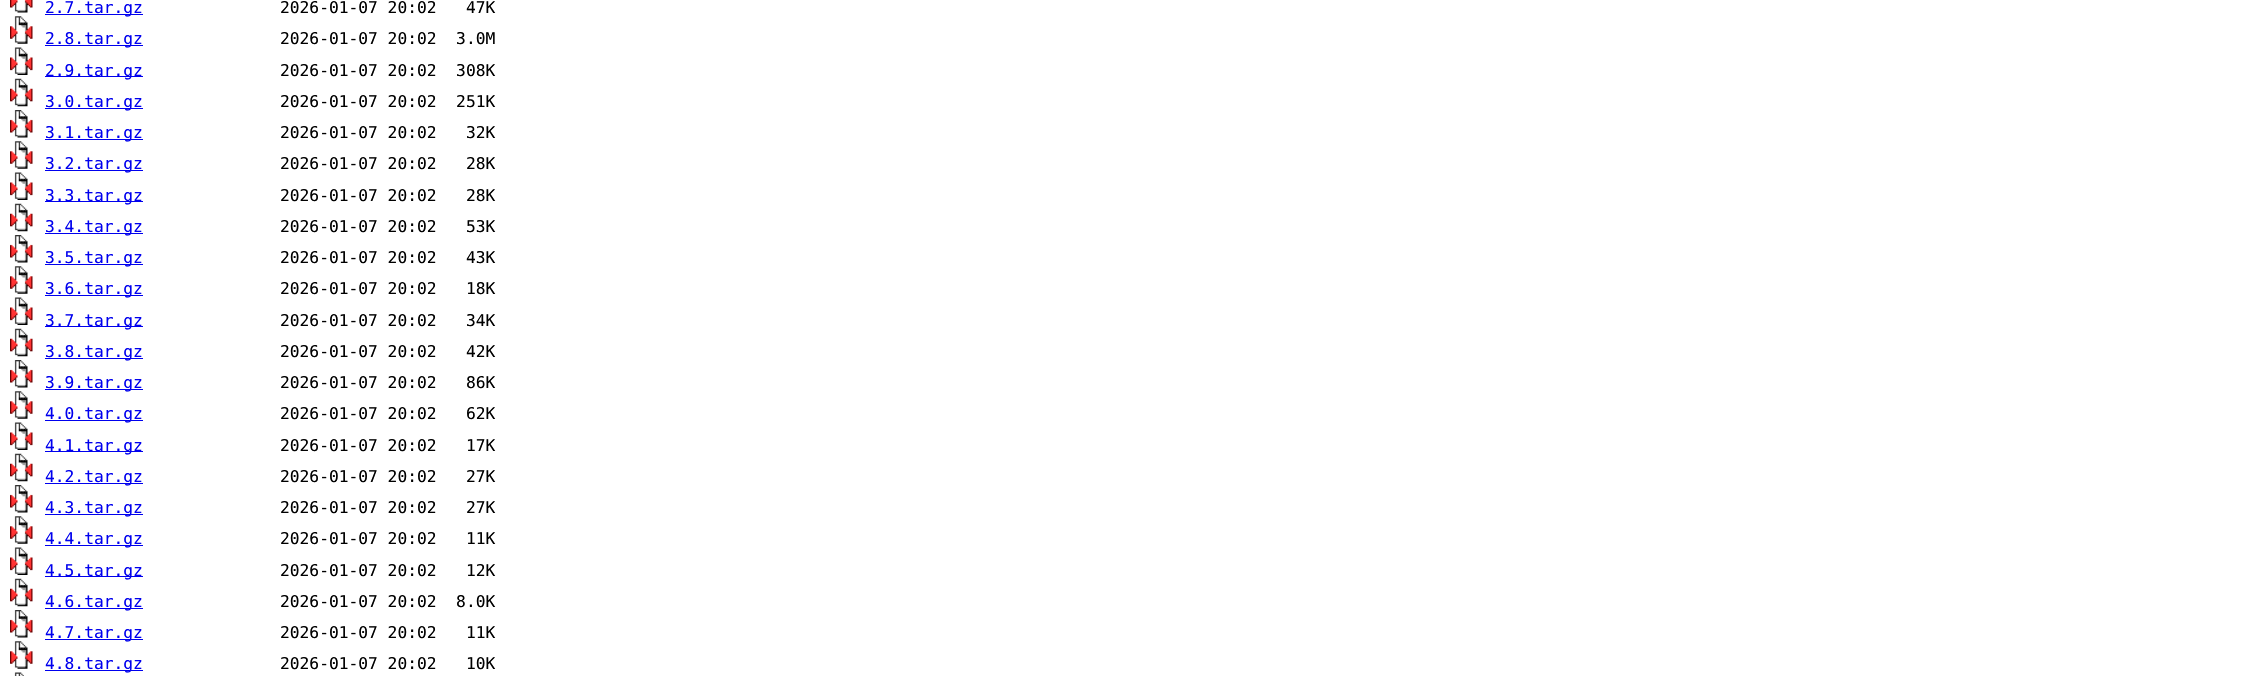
static SkFont makeFont(const char* family, int weight, float size, bool italic = false) {
  SkFontStyle style(weight, SkFontStyle::kNormal_Width,
    italic ? SkFontStyle::kItalic_Slant : SkFontStyle::kUpright_Slant);
  SkFont result(fontMgr->matchFamilyStyle(family, style), size);
  result.setSubpixel(true);
  return result;
}

static void text(SkCanvas* c, const char* s, float x, float y, const SkFont& font, SkColor color) {
  SkPaint ink(SkColor4f::FromColor(color));
  ink.setAntiAlias(true);
  c->drawString(s, x, y, font, ink);
}

static void box(SkCanvas* c, float l, float t, float r, float b, SkColor color) {
  SkPaint ink(SkColor4f::FromColor(color));
  ink.setAntiAlias(true);
  c->drawRect(SkRect::MakeLTRB(l, t, r, b), ink);
}

static void picture(SkCanvas* c, const char* path, float l, float t, float r, float b) {
  auto image = SkImages::DeferredFromEncodedData(SkData::MakeFromFileName(path));
  c->drawImageRect(image, SkRect::MakeLTRB(l, t, r, b), SkSamplingOptions());
}

void draw(SkCanvas* c) {
  SkPaint paint;
  paint.setAntiAlias(true);
  c->clear(0xffffffff);
  picture(c, "img_01.png", 10, 0, 33, 13);
  box(c, 45, 14, 143, 15, 0xff0000ee);
  SkFont face1 = makeFont("DejaVu Sans Mono", 400, 16.25f);
  text(c, "2.7.tar.gz", 45, 13, face1, 0xff0000ee);
  text(c, "2026-01-07 20:02   47K", 280, 13, face1, 0xff000000);
  picture(c, "img_02.png", 10, 16, 33, 44);
  box(c, 45, 45, 143, 46, 0xff0000ee);
  text(c, "2.8.tar.gz", 45, 44, face1, 0xff0000ee);
  text(c, "2026-01-07 20:02  3.0M", 280, 44, face1, 0xff000000);
  picture(c, "img_03.png", 10, 47, 33, 75);
  box(c, 45, 76, 143, 77, 0xff0000ee);
  text(c, "2.9.tar.gz", 45, 76, face1, 0xff0000ee);
  text(c, "2026-01-07 20:02  308K", 280, 76, face1, 0xff000000);
  picture(c, "img_04.png", 10, 78, 33, 107);
  box(c, 45, 108, 143, 109, 0xff0000ee);
  text(c, "3.0.tar.gz", 45, 107, face1, 0xff0000ee);
  text(c, "2026-01-07 20:02  251K", 280, 107, face1, 0xff000000);
  picture(c, "img_05.png", 10, 110, 33, 138);
  box(c, 45, 139, 143, 140, 0xff0000ee);
  text(c, "3.1.tar.gz", 45, 138, face1, 0xff0000ee);
  text(c, "2026-01-07 20:02   32K", 280, 138, face1, 0xff000000);
  picture(c, "img_02.png", 10, 141, 33, 169);
  box(c, 45, 170, 143, 171, 0xff0000ee);
  text(c, "3.2.tar.gz", 45, 169, face1, 0xff0000ee);
  text(c, "2026-01-07 20:02   28K", 280, 169, face1, 0xff000000);
  picture(c, "img_03.png", 10, 172, 33, 200);
  box(c, 45, 201, 143, 202, 0xff0000ee);
  text(c, "3.3.tar.gz", 45, 201, face1, 0xff0000ee);
  text(c, "2026-01-07 20:02   28K", 280, 201, face1, 0xff000000);
  picture(c, "img_04.png", 10, 203, 33, 232);
  box(c, 45, 233, 143, 234, 0xff0000ee);
  text(c, "3.4.tar.gz", 45, 232, face1, 0xff0000ee);
  text(c, "2026-01-07 20:02   53K", 280, 232, face1, 0xff000000);
  picture(c, "img_05.png", 10, 235, 33, 263);
  box(c, 45, 264, 143, 265, 0xff0000ee);
  text(c, "3.5.tar.gz", 45, 263, face1, 0xff0000ee);
  text(c, "2026-01-07 20:02   43K", 280, 263, face1, 0xff000000);
  picture(c, "img_02.png", 10, 266, 33, 294);
  box(c, 45, 295, 143, 296, 0xff0000ee);
  text(c, "3.6.tar.gz", 45, 294, face1, 0xff0000ee);
  text(c, "2026-01-07 20:02   18K", 280, 294, face1, 0xff000000);
  picture(c, "img_03.png", 10, 297, 33, 325);
  box(c, 45, 326, 143, 327, 0xff0000ee);
  text(c, "3.7.tar.gz", 45, 326, face1, 0xff0000ee);
  text(c, "2026-01-07 20:02   34K", 280, 326, face1, 0xff000000);
  picture(c, "img_06.png", 10, 328, 33, 357);
  box(c, 45, 358, 143, 359, 0xff0000ee);
  text(c, "3.8.tar.gz", 45, 357, face1, 0xff0000ee);
  text(c, "2026-01-07 20:02   42K", 280, 357, face1, 0xff000000);
  picture(c, "img_05.png", 10, 360, 33, 388);
  box(c, 45, 389, 143, 390, 0xff0000ee);
  text(c, "3.9.tar.gz", 45, 388, face1, 0xff0000ee);
  text(c, "2026-01-07 20:02   86K", 280, 388, face1, 0xff000000);
  picture(c, "img_02.png", 10, 391, 33, 419);
  box(c, 45, 420, 143, 421, 0xff0000ee);
  text(c, "4.0.tar.gz", 45, 419, face1, 0xff0000ee);
  text(c, "2026-01-07 20:02   62K", 280, 419, face1, 0xff000000);
  picture(c, "img_03.png", 10, 422, 33, 450);
  box(c, 45, 451, 143, 452, 0xff0000ee);
  text(c, "4.1.tar.gz", 45, 451, face1, 0xff0000ee);
  text(c, "2026-01-07 20:02   17K", 280, 451, face1, 0xff000000);
  picture(c, "img_04.png", 10, 453, 33, 482);
  box(c, 45, 483, 143, 484, 0xff0000ee);
  text(c, "4.2.tar.gz", 45, 482, face1, 0xff0000ee);
  text(c, "2026-01-07 20:02   27K", 280, 482, face1, 0xff000000);
  picture(c, "img_05.png", 10, 485, 33, 513);
  box(c, 45, 514, 143, 515, 0xff0000ee);
  text(c, "4.3.tar.gz", 45, 513, face1, 0xff0000ee);
  text(c, "2026-01-07 20:02   27K", 280, 513, face1, 0xff000000);
  picture(c, "img_02.png", 10, 516, 33, 544);
  box(c, 45, 545, 143, 546, 0xff0000ee);
  text(c, "4.4.tar.gz", 45, 544, face1, 0xff0000ee);
  text(c, "2026-01-07 20:02   11K", 280, 544, face1, 0xff000000);
  picture(c, "img_03.png", 10, 547, 33, 575);
  box(c, 45, 576, 143, 577, 0xff0000ee);
  text(c, "4.5.tar.gz", 45, 576, face1, 0xff0000ee);
  text(c, "2026-01-07 20:02   12K", 280, 576, face1, 0xff000000);
  picture(c, "img_04.png", 10, 578, 33, 607);
  box(c, 45, 608, 143, 609, 0xff0000ee);
  text(c, "4.6.tar.gz", 45, 607, face1, 0xff0000ee);
  text(c, "2026-01-07 20:02  8.0K", 280, 607, face1, 0xff000000);
  picture(c, "img_05.png", 10, 610, 33, 638);
  box(c, 45, 639, 143, 640, 0xff0000ee);
  text(c, "4.7.tar.gz", 45, 638, face1, 0xff0000ee);
  text(c, "2026-01-07 20:02   11K", 280, 638, face1, 0xff000000);
  picture(c, "img_02.png", 10, 641, 33, 669);
  box(c, 45, 670, 143, 671, 0xff0000ee);
  text(c, "4.8.tar.gz", 45, 669, face1, 0xff0000ee);
  text(c, "2026-01-07 20:02   10K", 280, 669, face1, 0xff000000);
  picture(c, "img_07.png", 14, 672, 24, 676);
}
